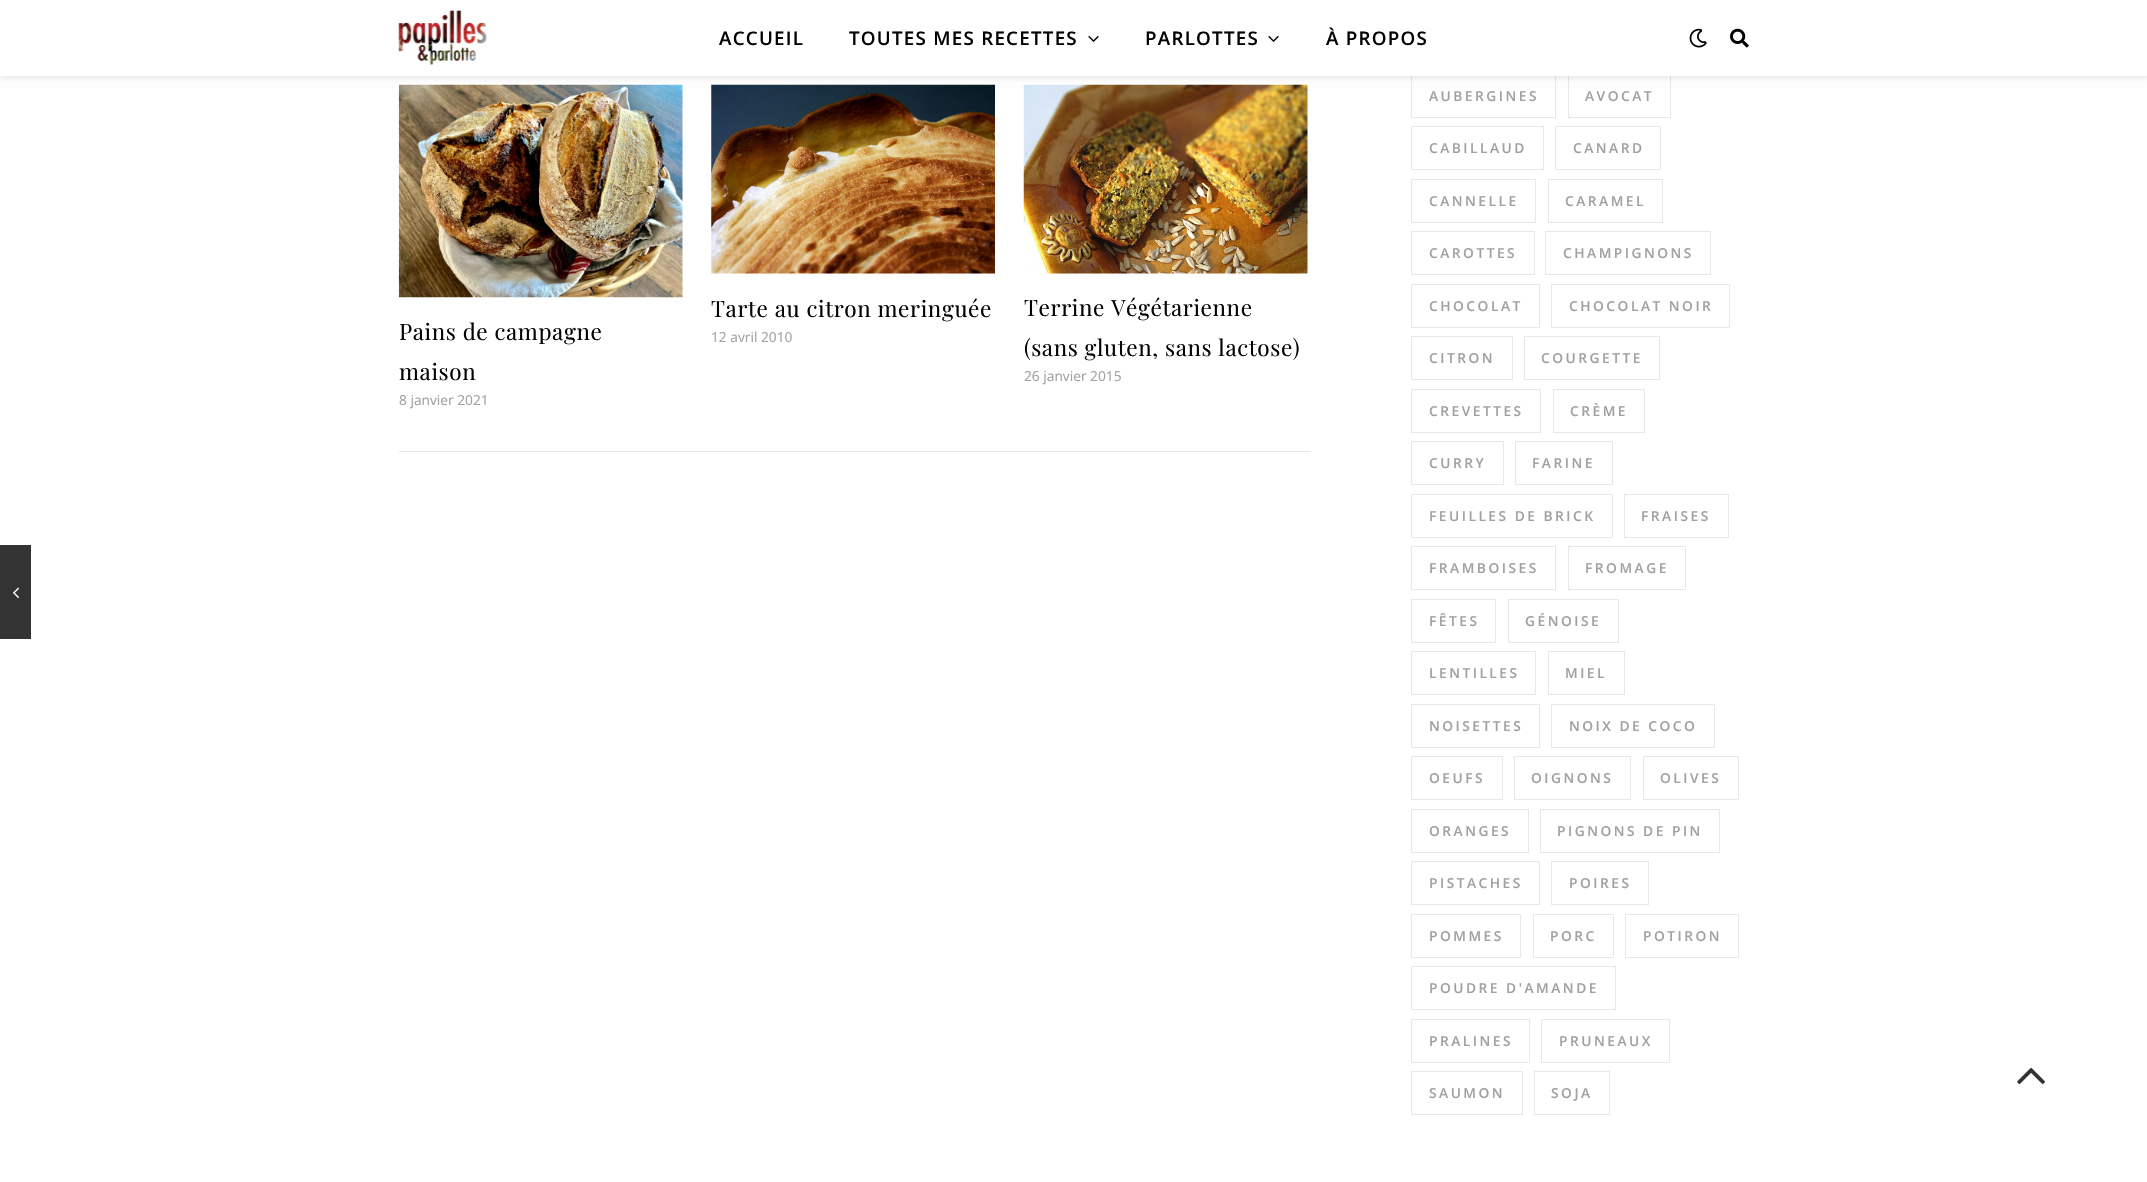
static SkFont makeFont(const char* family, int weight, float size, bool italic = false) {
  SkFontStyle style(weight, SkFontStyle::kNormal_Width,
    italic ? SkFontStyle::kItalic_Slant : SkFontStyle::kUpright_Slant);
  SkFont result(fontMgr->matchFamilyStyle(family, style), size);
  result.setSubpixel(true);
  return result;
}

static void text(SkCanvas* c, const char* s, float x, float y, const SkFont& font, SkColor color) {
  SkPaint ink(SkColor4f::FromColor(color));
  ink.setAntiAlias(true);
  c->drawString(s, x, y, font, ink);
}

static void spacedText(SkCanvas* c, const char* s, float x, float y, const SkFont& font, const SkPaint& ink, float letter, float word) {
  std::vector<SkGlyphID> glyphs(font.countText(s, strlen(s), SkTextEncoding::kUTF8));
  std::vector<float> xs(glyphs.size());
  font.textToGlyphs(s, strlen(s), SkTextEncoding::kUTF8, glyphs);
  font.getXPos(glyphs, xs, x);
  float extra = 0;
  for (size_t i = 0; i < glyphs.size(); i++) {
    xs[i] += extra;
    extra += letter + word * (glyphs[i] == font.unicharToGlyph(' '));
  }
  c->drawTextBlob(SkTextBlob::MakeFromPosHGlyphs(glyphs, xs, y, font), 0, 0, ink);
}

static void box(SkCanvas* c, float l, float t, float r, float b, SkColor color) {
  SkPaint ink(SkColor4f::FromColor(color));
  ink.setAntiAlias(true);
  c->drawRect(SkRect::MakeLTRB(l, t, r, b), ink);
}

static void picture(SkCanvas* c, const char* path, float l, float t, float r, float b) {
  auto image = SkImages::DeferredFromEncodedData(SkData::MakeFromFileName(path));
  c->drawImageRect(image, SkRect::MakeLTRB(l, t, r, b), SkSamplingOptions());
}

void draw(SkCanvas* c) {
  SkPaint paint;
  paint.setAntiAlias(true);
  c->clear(0xffffffff);
  picture(c, "img_05.png", 398, 84, 683, 298);
  picture(c, "img_06.png", 711, 84, 995, 274);
  picture(c, "img_07.png", 1023, 84, 1308, 274);
  paint.setStyle(SkPaint::kStroke_Style);
  paint.setStrokeWidth(1);
  paint.setColor(0xffe8e8e8);
  c->drawRect(SkRect::MakeLTRB(1411.5f, 74.5f, 1555.5f, 117.5f), paint);
  c->drawRect(SkRect::MakeLTRB(1568.5f, 74.5f, 1670.5f, 117.5f), paint);
  paint.setStyle(SkPaint::kFill_Style);
  paint.setColor(0x1a000000);
  paint.setMaskFilter(SkMaskFilter::MakeBlur(kNormal_SkBlurStyle, 3));
  c->drawRect(SkRect::MakeLTRB(0, 1, 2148, 78), paint);
  paint.setMaskFilter(nullptr);
  box(c, 0, 0, 2147, 76, 0xffffffff);
  picture(c, "img_01.png", 398, 10, 487, 65);
  SkFont face1 = makeFont("Open Sans", 600, 18.75f);
  paint.setColor(0xff030303);
  spacedText(c, "ACCUEIL", 719, 45, face1, paint, 1.25f, 0);
  spacedText(c, "TOUTES MES RECETTES", 849, 45, face1, paint, 1.25f, 0);
  picture(c, "img_02.png", 1088, 35, 1099, 42);
  spacedText(c, "PARLOTTES", 1145, 45, face1, paint, 1.25f, 0);
  picture(c, "img_02.png", 1268, 35, 1279, 42);
  spacedText(c, "À PROPOS", 1326, 45, face1, paint, 1.25f, 0);
  picture(c, "img_03.png", 1689, 28, 1707, 48);
  picture(c, "img_04.png", 1730, 28, 1749, 48);
  box(c, 399, 451, 1311, 452, 0xffe8e8e8);
  SkFont face2 = makeFont("Playfair Display", 400, 22.5f);
  spacedText(c, "Pains de campagne", 399, 340, face2, paint, 0.6f, 0);
  spacedText(c, "maison", 399, 380, face2, paint, 0.6f, 0);
  SkFont face3 = makeFont("Open Sans", 400, 13.75f);
  text(c, "8 janvier 2021", 399, 405, face3, 0xffa1a1a1);
  spacedText(c, "Tarte au citron meringuée", 711, 317, face2, paint, 0.6f, 0);
  text(c, "12 avril 2010", 711, 342, face3, 0xffa1a1a1);
  spacedText(c, "Terrine Végétarienne", 1024, 316, face2, paint, 0.6f, 0);
  spacedText(c, "(sans gluten, sans lactose)", 1024, 356, face2, paint, 0.6f, 0);
  text(c, "26 janvier 2015", 1024, 381, face3, 0xffa1a1a1);
  box(c, 0, 545, 31, 639, 0xff333333);
  picture(c, "img_08.png", 13, 587, 19, 598);
  SkFont face4 = makeFont("Open Sans", 600, 13.75f);
  paint.setColor(0xffa1a1a1);
  spacedText(c, "AUBERGINES", 1429, 101, face4, paint, 2.5f, 0);
  spacedText(c, "AVOCAT", 1585, 101, face4, paint, 2.5f, 0);
  paint.setStyle(SkPaint::kStroke_Style);
  paint.setColor(0xffe8e8e8);
  c->drawRect(SkRect::MakeLTRB(1411.5f, 126.5f, 1543.5f, 169.5f), paint);
  paint.setStyle(SkPaint::kFill_Style);
  paint.setColor(0xffa1a1a1);
  spacedText(c, "CABILLAUD", 1429, 153, face4, paint, 2.5f, 0);
  paint.setStyle(SkPaint::kStroke_Style);
  paint.setColor(0xffe8e8e8);
  c->drawRect(SkRect::MakeLTRB(1555.5f, 126.5f, 1660.5f, 169.5f), paint);
  paint.setStyle(SkPaint::kFill_Style);
  paint.setColor(0xffa1a1a1);
  spacedText(c, "CANARD", 1573, 153, face4, paint, 2.5f, 0);
  paint.setStyle(SkPaint::kStroke_Style);
  paint.setColor(0xffe8e8e8);
  c->drawRect(SkRect::MakeLTRB(1411.5f, 179.5f, 1535.5f, 222.5f), paint);
  paint.setStyle(SkPaint::kFill_Style);
  paint.setColor(0xffa1a1a1);
  spacedText(c, "CANNELLE", 1429, 206, face4, paint, 2.5f, 0);
  paint.setStyle(SkPaint::kStroke_Style);
  paint.setColor(0xffe8e8e8);
  c->drawRect(SkRect::MakeLTRB(1548.5f, 179.5f, 1662.5f, 222.5f), paint);
  paint.setStyle(SkPaint::kFill_Style);
  paint.setColor(0xffa1a1a1);
  spacedText(c, "CARAMEL", 1565, 206, face4, paint, 2.5f, 0);
  paint.setStyle(SkPaint::kStroke_Style);
  paint.setColor(0xffe8e8e8);
  c->drawRect(SkRect::MakeLTRB(1411.5f, 231.5f, 1534.5f, 274.5f), paint);
  paint.setStyle(SkPaint::kFill_Style);
  paint.setColor(0xffa1a1a1);
  spacedText(c, "CAROTTES", 1429, 258, face4, paint, 2.5f, 0);
  paint.setStyle(SkPaint::kStroke_Style);
  paint.setColor(0xffe8e8e8);
  c->drawRect(SkRect::MakeLTRB(1545.5f, 231.5f, 1710.5f, 274.5f), paint);
  paint.setStyle(SkPaint::kFill_Style);
  paint.setColor(0xffa1a1a1);
  spacedText(c, "CHAMPIGNONS", 1563, 258, face4, paint, 2.5f, 0);
  paint.setStyle(SkPaint::kStroke_Style);
  paint.setColor(0xffe8e8e8);
  c->drawRect(SkRect::MakeLTRB(1411.5f, 284.5f, 1539.5f, 327.5f), paint);
  paint.setStyle(SkPaint::kFill_Style);
  paint.setColor(0xffa1a1a1);
  spacedText(c, "CHOCOLAT", 1429, 311, face4, paint, 2.5f, 0);
  paint.setStyle(SkPaint::kStroke_Style);
  paint.setColor(0xffe8e8e8);
  c->drawRect(SkRect::MakeLTRB(1551.5f, 284.5f, 1729.5f, 327.5f), paint);
  paint.setStyle(SkPaint::kFill_Style);
  paint.setColor(0xffa1a1a1);
  spacedText(c, "CHOCOLAT NOIR", 1569, 311, face4, paint, 2.5f, 0);
  paint.setStyle(SkPaint::kStroke_Style);
  paint.setColor(0xffe8e8e8);
  c->drawRect(SkRect::MakeLTRB(1411.5f, 336.5f, 1512.5f, 379.5f), paint);
  paint.setStyle(SkPaint::kFill_Style);
  paint.setColor(0xffa1a1a1);
  spacedText(c, "CITRON", 1429, 363, face4, paint, 2.5f, 0);
  paint.setStyle(SkPaint::kStroke_Style);
  paint.setColor(0xffe8e8e8);
  c->drawRect(SkRect::MakeLTRB(1524.5f, 336.5f, 1659.5f, 379.5f), paint);
  paint.setStyle(SkPaint::kFill_Style);
  paint.setColor(0xffa1a1a1);
  spacedText(c, "COURGETTE", 1541, 363, face4, paint, 2.5f, 0);
  paint.setStyle(SkPaint::kStroke_Style);
  paint.setColor(0xffe8e8e8);
  c->drawRect(SkRect::MakeLTRB(1411.5f, 389.5f, 1540.5f, 432.5f), paint);
  paint.setStyle(SkPaint::kFill_Style);
  paint.setColor(0xffa1a1a1);
  spacedText(c, "CREVETTES", 1429, 416, face4, paint, 2.5f, 0);
  paint.setStyle(SkPaint::kStroke_Style);
  paint.setColor(0xffe8e8e8);
  c->drawRect(SkRect::MakeLTRB(1553.5f, 389.5f, 1644.5f, 432.5f), paint);
  paint.setStyle(SkPaint::kFill_Style);
  paint.setColor(0xffa1a1a1);
  spacedText(c, "CRÈME", 1570, 416, face4, paint, 2.5f, 0);
  paint.setStyle(SkPaint::kStroke_Style);
  paint.setColor(0xffe8e8e8);
  c->drawRect(SkRect::MakeLTRB(1411.5f, 441.5f, 1503.5f, 484.5f), paint);
  paint.setStyle(SkPaint::kFill_Style);
  paint.setColor(0xffa1a1a1);
  spacedText(c, "CURRY", 1429, 468, face4, paint, 2.5f, 0);
  paint.setStyle(SkPaint::kStroke_Style);
  paint.setColor(0xffe8e8e8);
  c->drawRect(SkRect::MakeLTRB(1515.5f, 441.5f, 1612.5f, 484.5f), paint);
  paint.setStyle(SkPaint::kFill_Style);
  paint.setColor(0xffa1a1a1);
  spacedText(c, "FARINE", 1532, 468, face4, paint, 2.5f, 0);
  paint.setStyle(SkPaint::kStroke_Style);
  paint.setColor(0xffe8e8e8);
  c->drawRect(SkRect::MakeLTRB(1411.5f, 494.5f, 1612.5f, 537.5f), paint);
  paint.setStyle(SkPaint::kFill_Style);
  paint.setColor(0xffa1a1a1);
  spacedText(c, "FEUILLES DE BRICK", 1429, 521, face4, paint, 2.5f, 0);
  paint.setStyle(SkPaint::kStroke_Style);
  paint.setColor(0xffe8e8e8);
  c->drawRect(SkRect::MakeLTRB(1624.5f, 494.5f, 1728.5f, 537.5f), paint);
  paint.setStyle(SkPaint::kFill_Style);
  paint.setColor(0xffa1a1a1);
  spacedText(c, "FRAISES", 1641, 521, face4, paint, 2.5f, 0);
  paint.setStyle(SkPaint::kStroke_Style);
  paint.setColor(0xffe8e8e8);
  c->drawRect(SkRect::MakeLTRB(1411.5f, 546.5f, 1555.5f, 589.5f), paint);
  paint.setStyle(SkPaint::kFill_Style);
  paint.setColor(0xffa1a1a1);
  spacedText(c, "FRAMBOISES", 1429, 573, face4, paint, 2.5f, 0);
  paint.setStyle(SkPaint::kStroke_Style);
  paint.setColor(0xffe8e8e8);
  c->drawRect(SkRect::MakeLTRB(1568.5f, 546.5f, 1685.5f, 589.5f), paint);
  paint.setStyle(SkPaint::kFill_Style);
  paint.setColor(0xffa1a1a1);
  spacedText(c, "FROMAGE", 1585, 573, face4, paint, 2.5f, 0);
  paint.setStyle(SkPaint::kStroke_Style);
  paint.setColor(0xffe8e8e8);
  c->drawRect(SkRect::MakeLTRB(1411.5f, 599.5f, 1495.5f, 642.5f), paint);
  paint.setStyle(SkPaint::kFill_Style);
  paint.setColor(0xffa1a1a1);
  spacedText(c, "FÊTES", 1429, 626, face4, paint, 2.5f, 0);
  paint.setStyle(SkPaint::kStroke_Style);
  paint.setColor(0xffe8e8e8);
  c->drawRect(SkRect::MakeLTRB(1508.5f, 599.5f, 1618.5f, 642.5f), paint);
  paint.setStyle(SkPaint::kFill_Style);
  paint.setColor(0xffa1a1a1);
  spacedText(c, "GÉNOISE", 1525, 626, face4, paint, 2.5f, 0);
  paint.setStyle(SkPaint::kStroke_Style);
  paint.setColor(0xffe8e8e8);
  c->drawRect(SkRect::MakeLTRB(1411.5f, 651.5f, 1535.5f, 694.5f), paint);
  paint.setStyle(SkPaint::kFill_Style);
  paint.setColor(0xffa1a1a1);
  spacedText(c, "LENTILLES", 1429, 678, face4, paint, 2.5f, 0);
  paint.setStyle(SkPaint::kStroke_Style);
  paint.setColor(0xffe8e8e8);
  c->drawRect(SkRect::MakeLTRB(1548.5f, 651.5f, 1624.5f, 694.5f), paint);
  paint.setStyle(SkPaint::kFill_Style);
  paint.setColor(0xffa1a1a1);
  spacedText(c, "MIEL", 1565, 678, face4, paint, 2.5f, 0);
  paint.setStyle(SkPaint::kStroke_Style);
  paint.setColor(0xffe8e8e8);
  c->drawRect(SkRect::MakeLTRB(1411.5f, 704.5f, 1539.5f, 747.5f), paint);
  paint.setStyle(SkPaint::kFill_Style);
  paint.setColor(0xffa1a1a1);
  spacedText(c, "NOISETTES", 1429, 731, face4, paint, 2.5f, 0);
  paint.setStyle(SkPaint::kStroke_Style);
  paint.setColor(0xffe8e8e8);
  c->drawRect(SkRect::MakeLTRB(1551.5f, 704.5f, 1714.5f, 747.5f), paint);
  paint.setStyle(SkPaint::kFill_Style);
  paint.setColor(0xffa1a1a1);
  spacedText(c, "NOIX DE COCO", 1569, 731, face4, paint, 2.5f, 0);
  paint.setStyle(SkPaint::kStroke_Style);
  paint.setColor(0xffe8e8e8);
  c->drawRect(SkRect::MakeLTRB(1411.5f, 756.5f, 1502.5f, 799.5f), paint);
  paint.setStyle(SkPaint::kFill_Style);
  paint.setColor(0xffa1a1a1);
  spacedText(c, "OEUFS", 1429, 783, face4, paint, 2.5f, 0);
  paint.setStyle(SkPaint::kStroke_Style);
  paint.setColor(0xffe8e8e8);
  c->drawRect(SkRect::MakeLTRB(1514.5f, 756.5f, 1630.5f, 799.5f), paint);
  paint.setStyle(SkPaint::kFill_Style);
  paint.setColor(0xffa1a1a1);
  spacedText(c, "OIGNONS", 1531, 783, face4, paint, 2.5f, 0);
  paint.setStyle(SkPaint::kStroke_Style);
  paint.setColor(0xffe8e8e8);
  c->drawRect(SkRect::MakeLTRB(1643.5f, 756.5f, 1738.5f, 799.5f), paint);
  paint.setStyle(SkPaint::kFill_Style);
  paint.setColor(0xffa1a1a1);
  spacedText(c, "OLIVES", 1660, 783, face4, paint, 2.5f, 0);
  paint.setStyle(SkPaint::kStroke_Style);
  paint.setColor(0xffe8e8e8);
  c->drawRect(SkRect::MakeLTRB(1411.5f, 809.5f, 1528.5f, 852.5f), paint);
  paint.setStyle(SkPaint::kFill_Style);
  paint.setColor(0xffa1a1a1);
  spacedText(c, "ORANGES", 1429, 836, face4, paint, 2.5f, 0);
  paint.setStyle(SkPaint::kStroke_Style);
  paint.setColor(0xffe8e8e8);
  c->drawRect(SkRect::MakeLTRB(1540.5f, 809.5f, 1719.5f, 852.5f), paint);
  paint.setStyle(SkPaint::kFill_Style);
  paint.setColor(0xffa1a1a1);
  spacedText(c, "PIGNONS DE PIN", 1557, 836, face4, paint, 2.5f, 0);
  paint.setStyle(SkPaint::kStroke_Style);
  paint.setColor(0xffe8e8e8);
  c->drawRect(SkRect::MakeLTRB(1411.5f, 861.5f, 1539.5f, 904.5f), paint);
  paint.setStyle(SkPaint::kFill_Style);
  paint.setColor(0xffa1a1a1);
  spacedText(c, "PISTACHES", 1429, 888, face4, paint, 2.5f, 0);
  paint.setStyle(SkPaint::kStroke_Style);
  paint.setColor(0xffe8e8e8);
  c->drawRect(SkRect::MakeLTRB(1551.5f, 861.5f, 1648.5f, 904.5f), paint);
  paint.setStyle(SkPaint::kFill_Style);
  paint.setColor(0xffa1a1a1);
  spacedText(c, "POIRES", 1569, 888, face4, paint, 2.5f, 0);
  paint.setStyle(SkPaint::kStroke_Style);
  paint.setColor(0xffe8e8e8);
  c->drawRect(SkRect::MakeLTRB(1411.5f, 914.5f, 1520.5f, 957.5f), paint);
  paint.setStyle(SkPaint::kFill_Style);
  paint.setColor(0xffa1a1a1);
  spacedText(c, "POMMES", 1429, 941, face4, paint, 2.5f, 0);
  paint.setStyle(SkPaint::kStroke_Style);
  paint.setColor(0xffe8e8e8);
  c->drawRect(SkRect::MakeLTRB(1533.5f, 914.5f, 1613.5f, 957.5f), paint);
  paint.setStyle(SkPaint::kFill_Style);
  paint.setColor(0xffa1a1a1);
  spacedText(c, "PORC", 1550, 941, face4, paint, 2.5f, 0);
  paint.setStyle(SkPaint::kStroke_Style);
  paint.setColor(0xffe8e8e8);
  c->drawRect(SkRect::MakeLTRB(1625.5f, 914.5f, 1738.5f, 957.5f), paint);
  paint.setStyle(SkPaint::kFill_Style);
  paint.setColor(0xffa1a1a1);
  spacedText(c, "POTIRON", 1643, 941, face4, paint, 2.5f, 0);
  paint.setStyle(SkPaint::kStroke_Style);
  paint.setColor(0xffe8e8e8);
  c->drawRect(SkRect::MakeLTRB(1411.5f, 966.5f, 1615.5f, 1009.5f), paint);
  paint.setStyle(SkPaint::kFill_Style);
  paint.setColor(0xffa1a1a1);
  spacedText(c, "POUDRE D'AMANDE", 1429, 993, face4, paint, 2.5f, 0);
  paint.setStyle(SkPaint::kStroke_Style);
  paint.setColor(0xffe8e8e8);
  c->drawRect(SkRect::MakeLTRB(1411.5f, 1019.5f, 1529.5f, 1062.5f), paint);
  paint.setStyle(SkPaint::kFill_Style);
  paint.setColor(0xffa1a1a1);
  spacedText(c, "PRALINES", 1429, 1046, face4, paint, 2.5f, 0);
  paint.setStyle(SkPaint::kStroke_Style);
  paint.setColor(0xffe8e8e8);
  c->drawRect(SkRect::MakeLTRB(1541.5f, 1019.5f, 1669.5f, 1062.5f), paint);
  paint.setStyle(SkPaint::kFill_Style);
  paint.setColor(0xffa1a1a1);
  spacedText(c, "PRUNEAUX", 1559, 1046, face4, paint, 2.5f, 0);
  paint.setStyle(SkPaint::kStroke_Style);
  paint.setColor(0xffe8e8e8);
  c->drawRect(SkRect::MakeLTRB(1411.5f, 1071.5f, 1522.5f, 1114.5f), paint);
  paint.setStyle(SkPaint::kFill_Style);
  paint.setColor(0xffa1a1a1);
  spacedText(c, "SAUMON", 1429, 1098, face4, paint, 2.5f, 0);
  paint.setStyle(SkPaint::kStroke_Style);
  paint.setColor(0xffe8e8e8);
  c->drawRect(SkRect::MakeLTRB(1534.5f, 1071.5f, 1609.5f, 1114.5f), paint);
  paint.setStyle(SkPaint::kFill_Style);
  paint.setColor(0xffa1a1a1);
  spacedText(c, "SOJA", 1551, 1098, face4, paint, 2.5f, 0);
  picture(c, "img_09.png", 2017, 1067, 2045, 1085);
}
